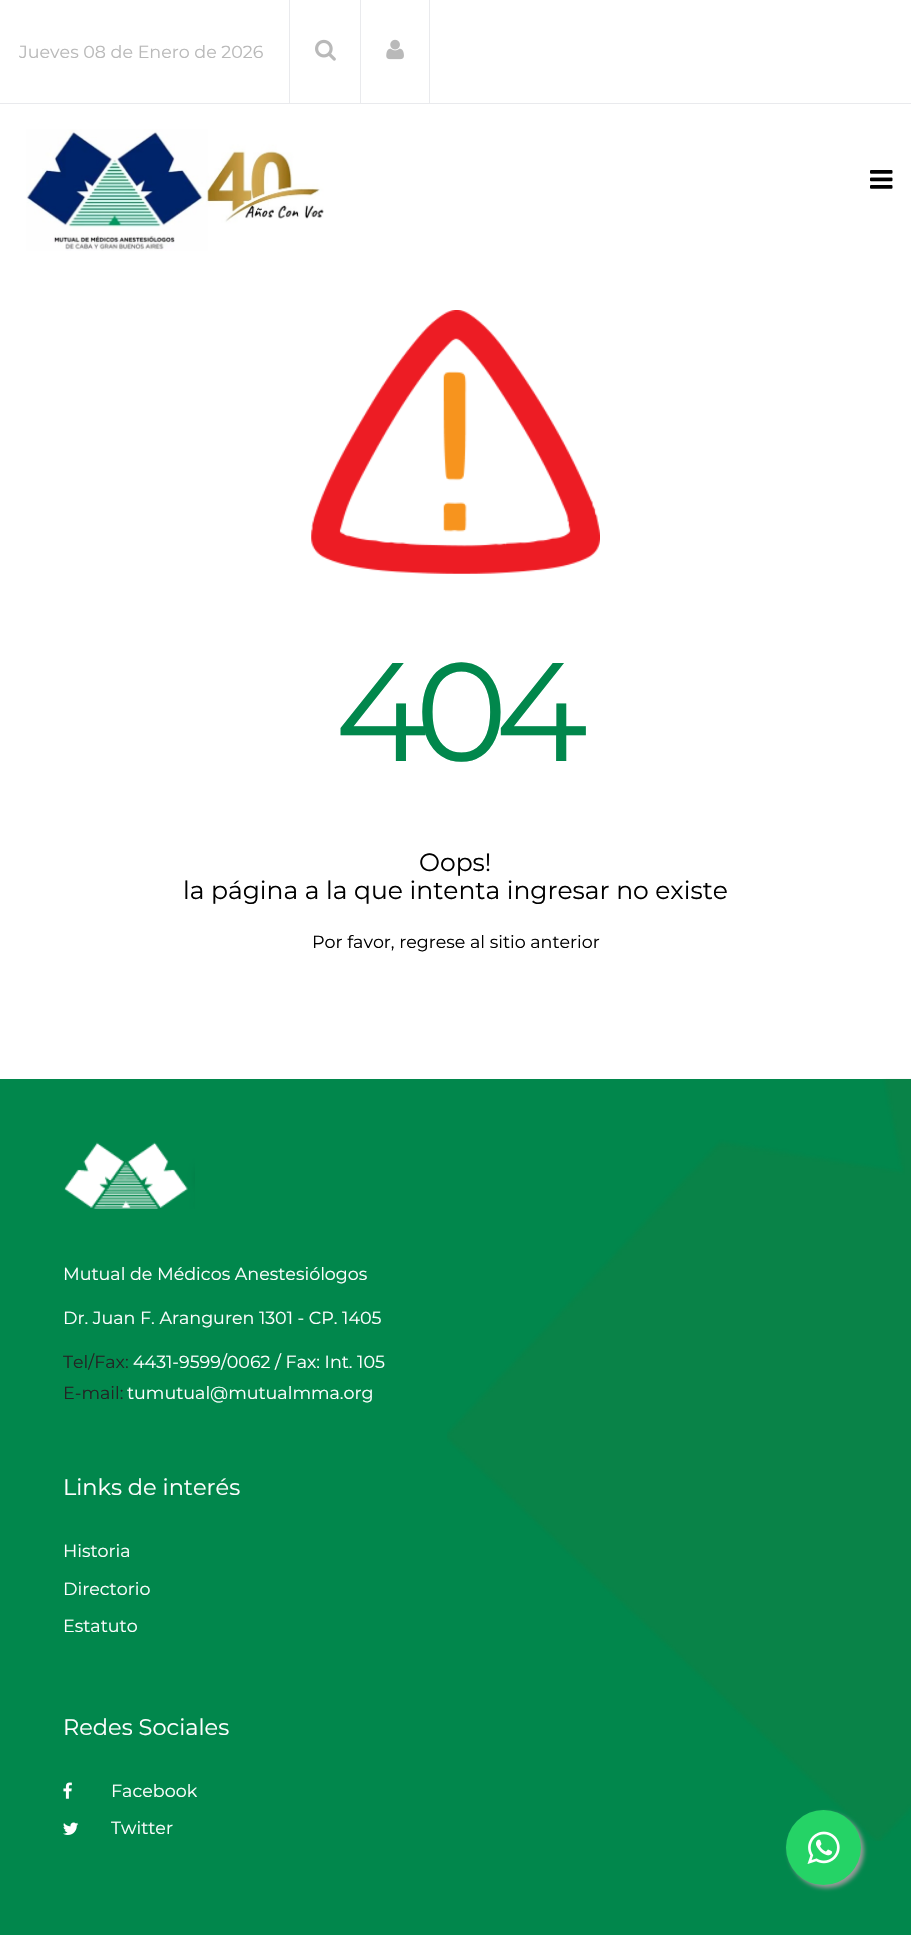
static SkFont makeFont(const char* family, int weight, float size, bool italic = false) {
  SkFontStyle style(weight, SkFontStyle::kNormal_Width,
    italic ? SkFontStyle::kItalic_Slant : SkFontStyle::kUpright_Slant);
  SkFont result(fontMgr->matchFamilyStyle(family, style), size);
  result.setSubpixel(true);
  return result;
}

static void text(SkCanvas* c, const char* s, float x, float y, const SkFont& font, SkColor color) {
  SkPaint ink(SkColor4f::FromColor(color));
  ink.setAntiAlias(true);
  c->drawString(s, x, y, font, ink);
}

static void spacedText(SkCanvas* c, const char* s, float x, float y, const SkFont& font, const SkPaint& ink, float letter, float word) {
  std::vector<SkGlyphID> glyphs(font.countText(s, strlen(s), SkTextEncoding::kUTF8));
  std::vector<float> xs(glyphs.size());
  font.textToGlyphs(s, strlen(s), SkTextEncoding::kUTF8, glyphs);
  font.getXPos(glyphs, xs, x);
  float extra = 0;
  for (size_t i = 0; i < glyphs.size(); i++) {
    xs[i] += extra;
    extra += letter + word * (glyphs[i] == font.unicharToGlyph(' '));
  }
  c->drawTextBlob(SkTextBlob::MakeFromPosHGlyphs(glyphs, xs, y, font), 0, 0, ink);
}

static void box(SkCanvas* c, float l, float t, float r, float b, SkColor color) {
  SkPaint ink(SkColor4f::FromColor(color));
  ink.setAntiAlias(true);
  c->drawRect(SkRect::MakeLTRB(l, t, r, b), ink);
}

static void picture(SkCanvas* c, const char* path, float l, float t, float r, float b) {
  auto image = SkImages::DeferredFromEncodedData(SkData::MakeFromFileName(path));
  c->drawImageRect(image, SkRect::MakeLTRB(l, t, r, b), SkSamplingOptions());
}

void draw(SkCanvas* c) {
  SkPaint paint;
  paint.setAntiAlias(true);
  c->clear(0xffffffff);
  box(c, 0, 103, 911, 104, 0xffe9eaed);
  box(c, 289, 0, 290, 103, 0xffe9eaed);
  SkFont face1 = makeFont("Montserrat", 400, 17.5f);
  text(c, "Jueves 08 de Enero de 2026", 19, 58, face1, 0xffb9b9b9);
  box(c, 360, 0, 361, 103, 0xffe9eaed);
  picture(c, "img_01.png", 315, 39, 336, 61);
  box(c, 429, 0, 430, 103, 0xffe9eaed);
  picture(c, "img_02.png", 386, 39, 404, 60);
  picture(c, "img_03.png", 26, 129, 324, 251);
  picture(c, "img_04.png", 870, 170, 893, 189);
  picture(c, "img_05.png", 311, 310, 600, 574);
  SkFont face2 = makeFont("Montserrat", 400, 140);
  paint.setColor(0xff01874c);
  spacedText(c, "404", 335, 761, face2, paint, -12.5f, 0);
  SkFont face3 = makeFont("Montserrat", 400, 25);
  text(c, "Oops!", 419, 871, face3, 0xff000000);
  text(c, "la página a la que intenta ingresar no existe", 183, 899, face3, 0xff000000);
  text(c, "Por favor, regrese al sitio anterior", 312, 948, face1, 0xff000000);
  box(c, 0, 1079, 911, 1935, 0xff01874c);
  picture(c, "img_06.png", 447, 1078, 911, 1841);
  picture(c, "img_07.png", 64, 1142, 195, 1209);
  text(c, "Mutual de Médicos Anestesiólogos", 63, 1280, face1, 0xffffffff);
  text(c, "Dr. Juan F. Aranguren 1301 - CP. 1405", 63, 1324, face1, 0xffffffff);
  text(c, "Tel/Fax:", 63, 1368, face1, 0xff232323);
  text(c, "4431-9599/0062 / Fax: Int. 105", 133, 1368, face1, 0xffffffff);
  text(c, "E-mail:", 63, 1399, face1, 0xff232323);
  text(c, "tumutual@mutualmma.org", 127, 1399, face1, 0xffffffff);
  SkFont face4 = makeFont("Montserrat", 400, 22.5f);
  text(c, "Links de interés", 63, 1495, face4, 0xffffffff);
  text(c, "Historia", 63, 1557, face1, 0xffffffff);
  text(c, "Directorio", 63, 1595, face1, 0xffffffff);
  text(c, "Estatuto", 63, 1632, face1, 0xffffffff);
  text(c, "Redes Sociales", 63, 1735, face4, 0xffffffff);
  picture(c, "img_08.png", 63, 1782, 72, 1799);
  text(c, "Facebook", 111, 1797, face1, 0xffffffff);
  picture(c, "img_09.png", 63, 1822, 79, 1835);
  text(c, "Twitter", 111, 1834, face1, 0xffffffff);
  paint.setColor(0xff999999);
  paint.setMaskFilter(SkMaskFilter::MakeBlur(kNormal_SkBlurStyle, 2));
  c->drawRoundRect(SkRect::MakeLTRB(789, 1813, 864, 1888), 37.5f, 37.5f, paint);
  paint.setMaskFilter(nullptr);
  paint.setColor(0xff25d366);
  c->drawCircle(823.5f, 1847.5f, 37.5f, paint);
  picture(c, "img_10.png", 807, 1831, 840, 1864);
}
